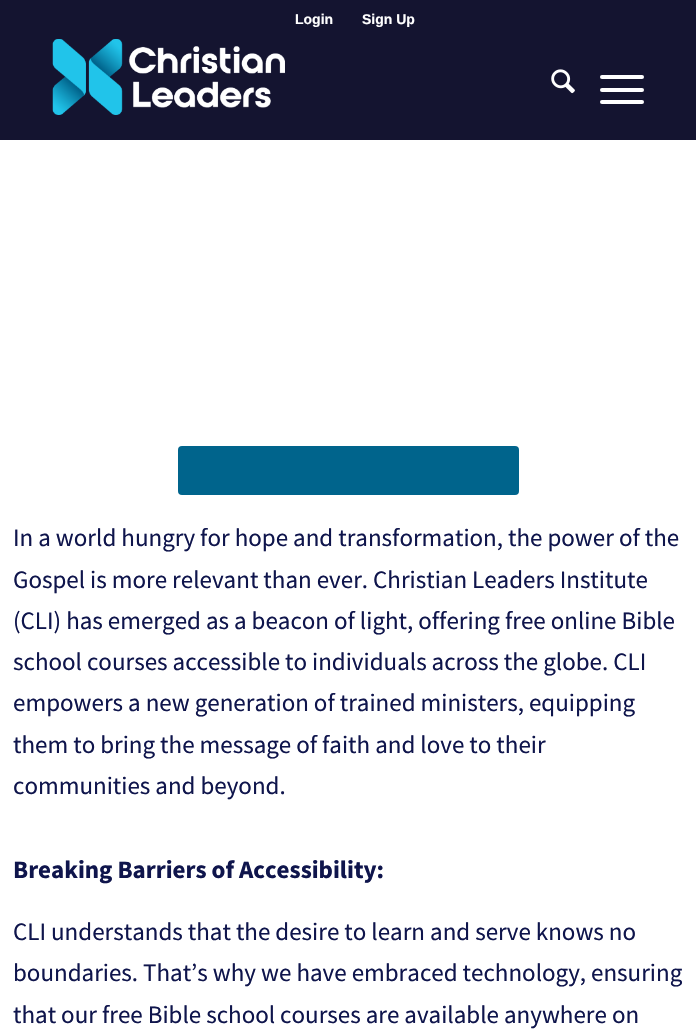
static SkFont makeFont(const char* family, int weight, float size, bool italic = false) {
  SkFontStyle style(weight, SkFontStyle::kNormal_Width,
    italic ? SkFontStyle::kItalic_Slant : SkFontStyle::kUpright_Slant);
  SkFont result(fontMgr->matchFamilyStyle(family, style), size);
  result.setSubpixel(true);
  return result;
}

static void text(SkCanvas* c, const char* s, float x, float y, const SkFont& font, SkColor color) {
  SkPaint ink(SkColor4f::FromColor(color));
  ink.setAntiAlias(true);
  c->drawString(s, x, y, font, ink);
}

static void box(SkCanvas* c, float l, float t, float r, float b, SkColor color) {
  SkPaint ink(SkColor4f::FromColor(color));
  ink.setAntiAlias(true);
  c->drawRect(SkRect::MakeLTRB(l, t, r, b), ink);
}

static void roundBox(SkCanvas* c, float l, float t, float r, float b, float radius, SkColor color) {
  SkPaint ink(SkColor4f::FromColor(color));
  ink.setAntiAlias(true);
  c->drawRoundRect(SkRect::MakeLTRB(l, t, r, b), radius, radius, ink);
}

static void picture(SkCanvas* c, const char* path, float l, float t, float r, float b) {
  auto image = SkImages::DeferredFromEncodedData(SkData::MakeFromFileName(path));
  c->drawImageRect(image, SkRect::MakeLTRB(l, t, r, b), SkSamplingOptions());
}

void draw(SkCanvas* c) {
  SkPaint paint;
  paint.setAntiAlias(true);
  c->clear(0xffffffff);
  box(c, 0, 0, 696, 140, 0xff141430);
  SkFont face1 = makeFont("Liberation Sans", 700, 14);
  text(c, "Login", 295, 24, face1, 0xffffffff);
  text(c, "Sign Up", 362, 24, face1, 0xffffffff);
  picture(c, "img_01.png", 52, 39, 285, 115);
  picture(c, "img_02.png", 551, 69, 575, 94);
  roundBox(c, 600, 88, 644, 92, 2, 0xffffffff);
  roundBox(c, 600, 75, 644, 79, 2, 0xffffffff);
  roundBox(c, 600, 100, 644, 104, 2, 0xffffffff);
  roundBox(c, 178, 446, 519, 495, 4, 0xff00648c);
  SkFont face2 = makeFont("Source Sans Pro", 400, 25);
  text(c, "In a world hungry for hope and transformation, the power of the", 13, 546, face2, 0xff0f154c);
  text(c, "Gospel is more relevant than ever. Christian Leaders Institute", 13, 588, face2, 0xff0f154c);
  text(c, "(CLI) has emerged as a beacon of light, offering free online Bible", 13, 629, face2, 0xff0f154c);
  text(c, "school courses accessible to individuals across the globe. CLI", 13, 670, face2, 0xff0f154c);
  text(c, "empowers a new generation of trained ministers, equipping", 13, 711, face2, 0xff0f154c);
  text(c, "them to bring the message of faith and love to their", 13, 753, face2, 0xff0f154c);
  text(c, "communities and beyond.", 13, 794, face2, 0xff0f154c);
  SkFont face3 = makeFont("Source Sans Pro", 700, 25);
  text(c, "Breaking Barriers of Accessibility:", 13, 878, face3, 0xff0f154c);
  text(c, "CLI understands that the desire to learn and serve knows no", 13, 940, face2, 0xff0f154c);
  text(c, "boundaries. That’s why we have embraced technology, ensuring", 13, 981, face2, 0xff0f154c);
  text(c, "that our free Bible school courses are available anywhere on", 13, 1023, face2, 0xff0f154c);
}
